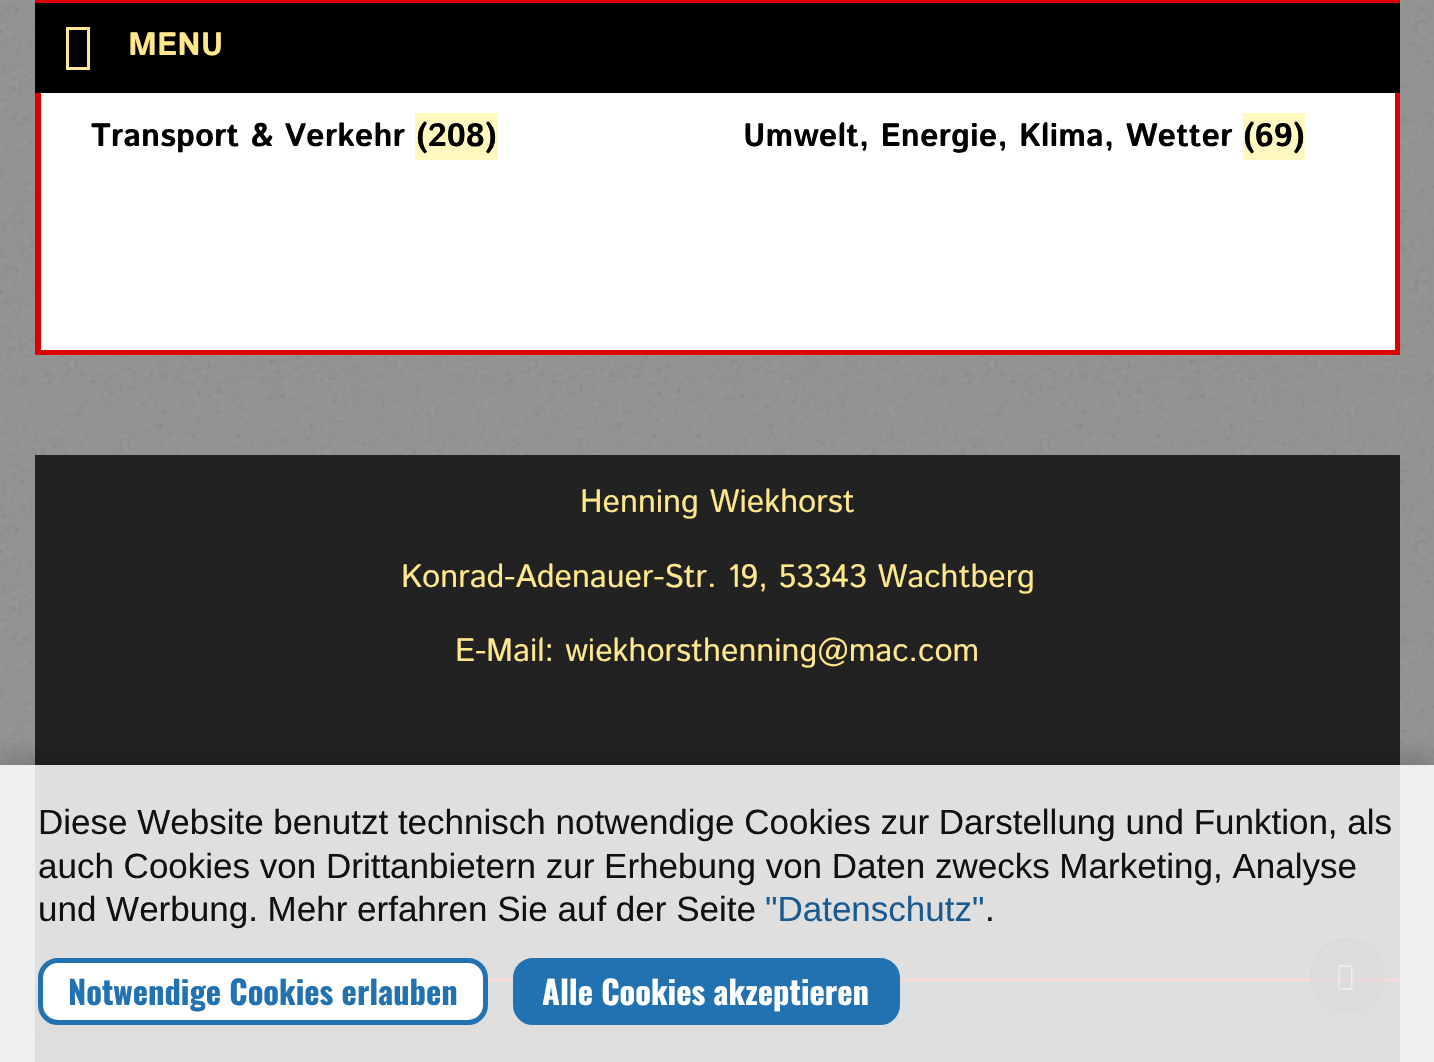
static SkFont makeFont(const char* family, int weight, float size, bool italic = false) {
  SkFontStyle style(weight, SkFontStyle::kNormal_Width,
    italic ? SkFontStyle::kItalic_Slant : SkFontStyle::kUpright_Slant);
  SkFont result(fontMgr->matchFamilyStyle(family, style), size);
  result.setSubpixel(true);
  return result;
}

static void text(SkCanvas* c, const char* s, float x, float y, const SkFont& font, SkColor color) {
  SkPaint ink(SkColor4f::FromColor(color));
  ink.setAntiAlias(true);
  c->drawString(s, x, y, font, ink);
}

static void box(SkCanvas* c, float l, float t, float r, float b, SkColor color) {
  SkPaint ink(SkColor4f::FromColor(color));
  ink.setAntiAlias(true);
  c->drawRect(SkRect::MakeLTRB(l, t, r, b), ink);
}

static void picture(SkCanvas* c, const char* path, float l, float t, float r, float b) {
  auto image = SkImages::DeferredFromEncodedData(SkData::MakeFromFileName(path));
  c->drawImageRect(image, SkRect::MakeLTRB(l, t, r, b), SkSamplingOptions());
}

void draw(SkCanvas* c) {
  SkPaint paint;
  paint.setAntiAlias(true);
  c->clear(0xff939393);
  picture(c, "img_01.png", 0, 0, 1434, 1062);
  box(c, 41, 93, 1395, 350, 0xffffffff);
  paint.setStyle(SkPaint::kStroke_Style);
  paint.setStrokeWidth(3);
  paint.setColor(0xffdd0000);
  c->drawRect(SkRect::MakeLTRB(36.5f, -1.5f, 1398.5f, 353.5f), paint);
  c->drawRect(SkRect::MakeLTRB(39.5f, -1.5f, 1396.5f, 351.5f), paint);
  box(c, 35, 3, 1400, 93, 0xff000000);
  box(c, 35, 0, 1400, 3, 0xffdd0000);
  paint.setStyle(SkPaint::kFill_Style);
  paint.setColor(0xffffe88c);
  c->drawPath(SkPathBuilder().moveTo(66, 70).lineTo(66, 27).lineTo(90, 27).lineTo(90, 70).close().moveTo(69, 67).lineTo(87, 67).lineTo(87, 30).lineTo(69, 30).close().detach(), paint);
  SkFont face1 = makeFont("Istok Web", 700, 32.5f);
  text(c, "MENU", 128, 55, face1, 0xffffe88c);
  text(c, "Transport & Verkehr", 91, 146, face1, 0xff000000);
  box(c, 415, 113, 498, 160, 0xfffff9c0);
  text(c, "(208)", 416, 146, face1, 0xff000000);
  text(c, "Umwelt, Energie, Klima, Wetter", 743, 146, face1, 0xff000000);
  box(c, 1243, 113, 1305, 160, 0xfffff9c0);
  text(c, "(69)", 1243, 146, face1, 0xff000000);
  box(c, 35, 455, 1400, 978, 0xff222222);
  SkFont face2 = makeFont("Istok Web", 400, 32.5f);
  text(c, "Henning Wiekhorst", 580, 512, face2, 0xffffe88c);
  text(c, "Konrad-Adenauer-Str. 19, 53343 Wachtberg", 401, 587, face2, 0xffffe88c);
  text(c, "E-Mail: wiekhorsthenning@mac.com", 455, 661, face2, 0xffffe88c);
  box(c, 35, 981, 1400, 1062, 0xff1e1e1e);
  box(c, 35, 978, 1400, 981, 0xffdd0000);
  paint.setColor(0x66000000);
  c->drawCircle(1347.5f, 975.5f, 37.5f, paint);
  paint.setStyle(SkPaint::kStroke_Style);
  c->drawCircle(1347.5f, 975.5f, 36, paint);
  paint.setStyle(SkPaint::kFill_Style);
  paint.setColor(0x66ffffff);
  c->drawPath(SkPathBuilder().moveTo(1338.5f, 990).lineTo(1338.5f, 965).lineTo(1352.5f, 965).lineTo(1352.5f, 990).close().moveTo(1340, 988).lineTo(1351, 988).lineTo(1351, 967).lineTo(1340, 967).close().detach(), paint);
  c->save();
  c->clipRect(SkRect::MakeLTRB(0, 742, 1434, 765));
  paint.setColor(0x33000000);
  paint.setMaskFilter(SkMaskFilter::MakeBlur(kNormal_SkBlurStyle, 12.5f));
  c->drawRect(SkRect::MakeLTRB(0, 758, 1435, 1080), paint);
  paint.setMaskFilter(nullptr);
  c->restore();
  box(c, 0, 765, 1434, 1062, 0xd9ffffff);
  SkFont face3 = makeFont("Liberation Sans", 400, 35);
  text(c, "Diese Website benutzt technisch notwendige Cookies zur Darstellung und Funktion, als", 38, 834, face3, 0xff111111);
  text(c, "auch Cookies von Drittanbietern zur Erhebung von Daten zwecks Marketing, Analyse", 38, 878, face3, 0xff111111);
  text(c, "und Werbung. Mehr erfahren Sie auf der Seite", 38, 921, face3, 0xff111111);
  text(c, "\"Datenschutz\"", 765, 921, face3, 0xff1b5a8e);
  text(c, ".", 985, 921, face3, 0xff111111);
  paint.setColor(0xffffffff);
  c->drawRoundRect(SkRect::MakeLTRB(40.5f, 960.5f, 485.5f, 1022.5f), 17.5f, 17.5f, paint);
  paint.setStyle(SkPaint::kStroke_Style);
  paint.setStrokeWidth(5);
  paint.setColor(0xff2271b1);
  c->drawRoundRect(SkRect::MakeLTRB(40.5f, 960.5f, 485.5f, 1022.5f), 17.5f, 17.5f, paint);
  SkFont face4 = makeFont("Oswald", 700, 32.5f);
  text(c, "Notwendige Cookies erlauben", 68, 1005, face4, 0xff2271b1);
  paint.setStyle(SkPaint::kFill_Style);
  c->drawRoundRect(SkRect::MakeLTRB(515.5f, 960.5f, 897.5f, 1022.5f), 17.5f, 17.5f, paint);
  paint.setStyle(SkPaint::kStroke_Style);
  c->drawRoundRect(SkRect::MakeLTRB(515.5f, 960.5f, 897.5f, 1022.5f), 17.5f, 17.5f, paint);
  text(c, "Alle Cookies akzeptieren", 542, 1005, face4, 0xffffffff);
}
